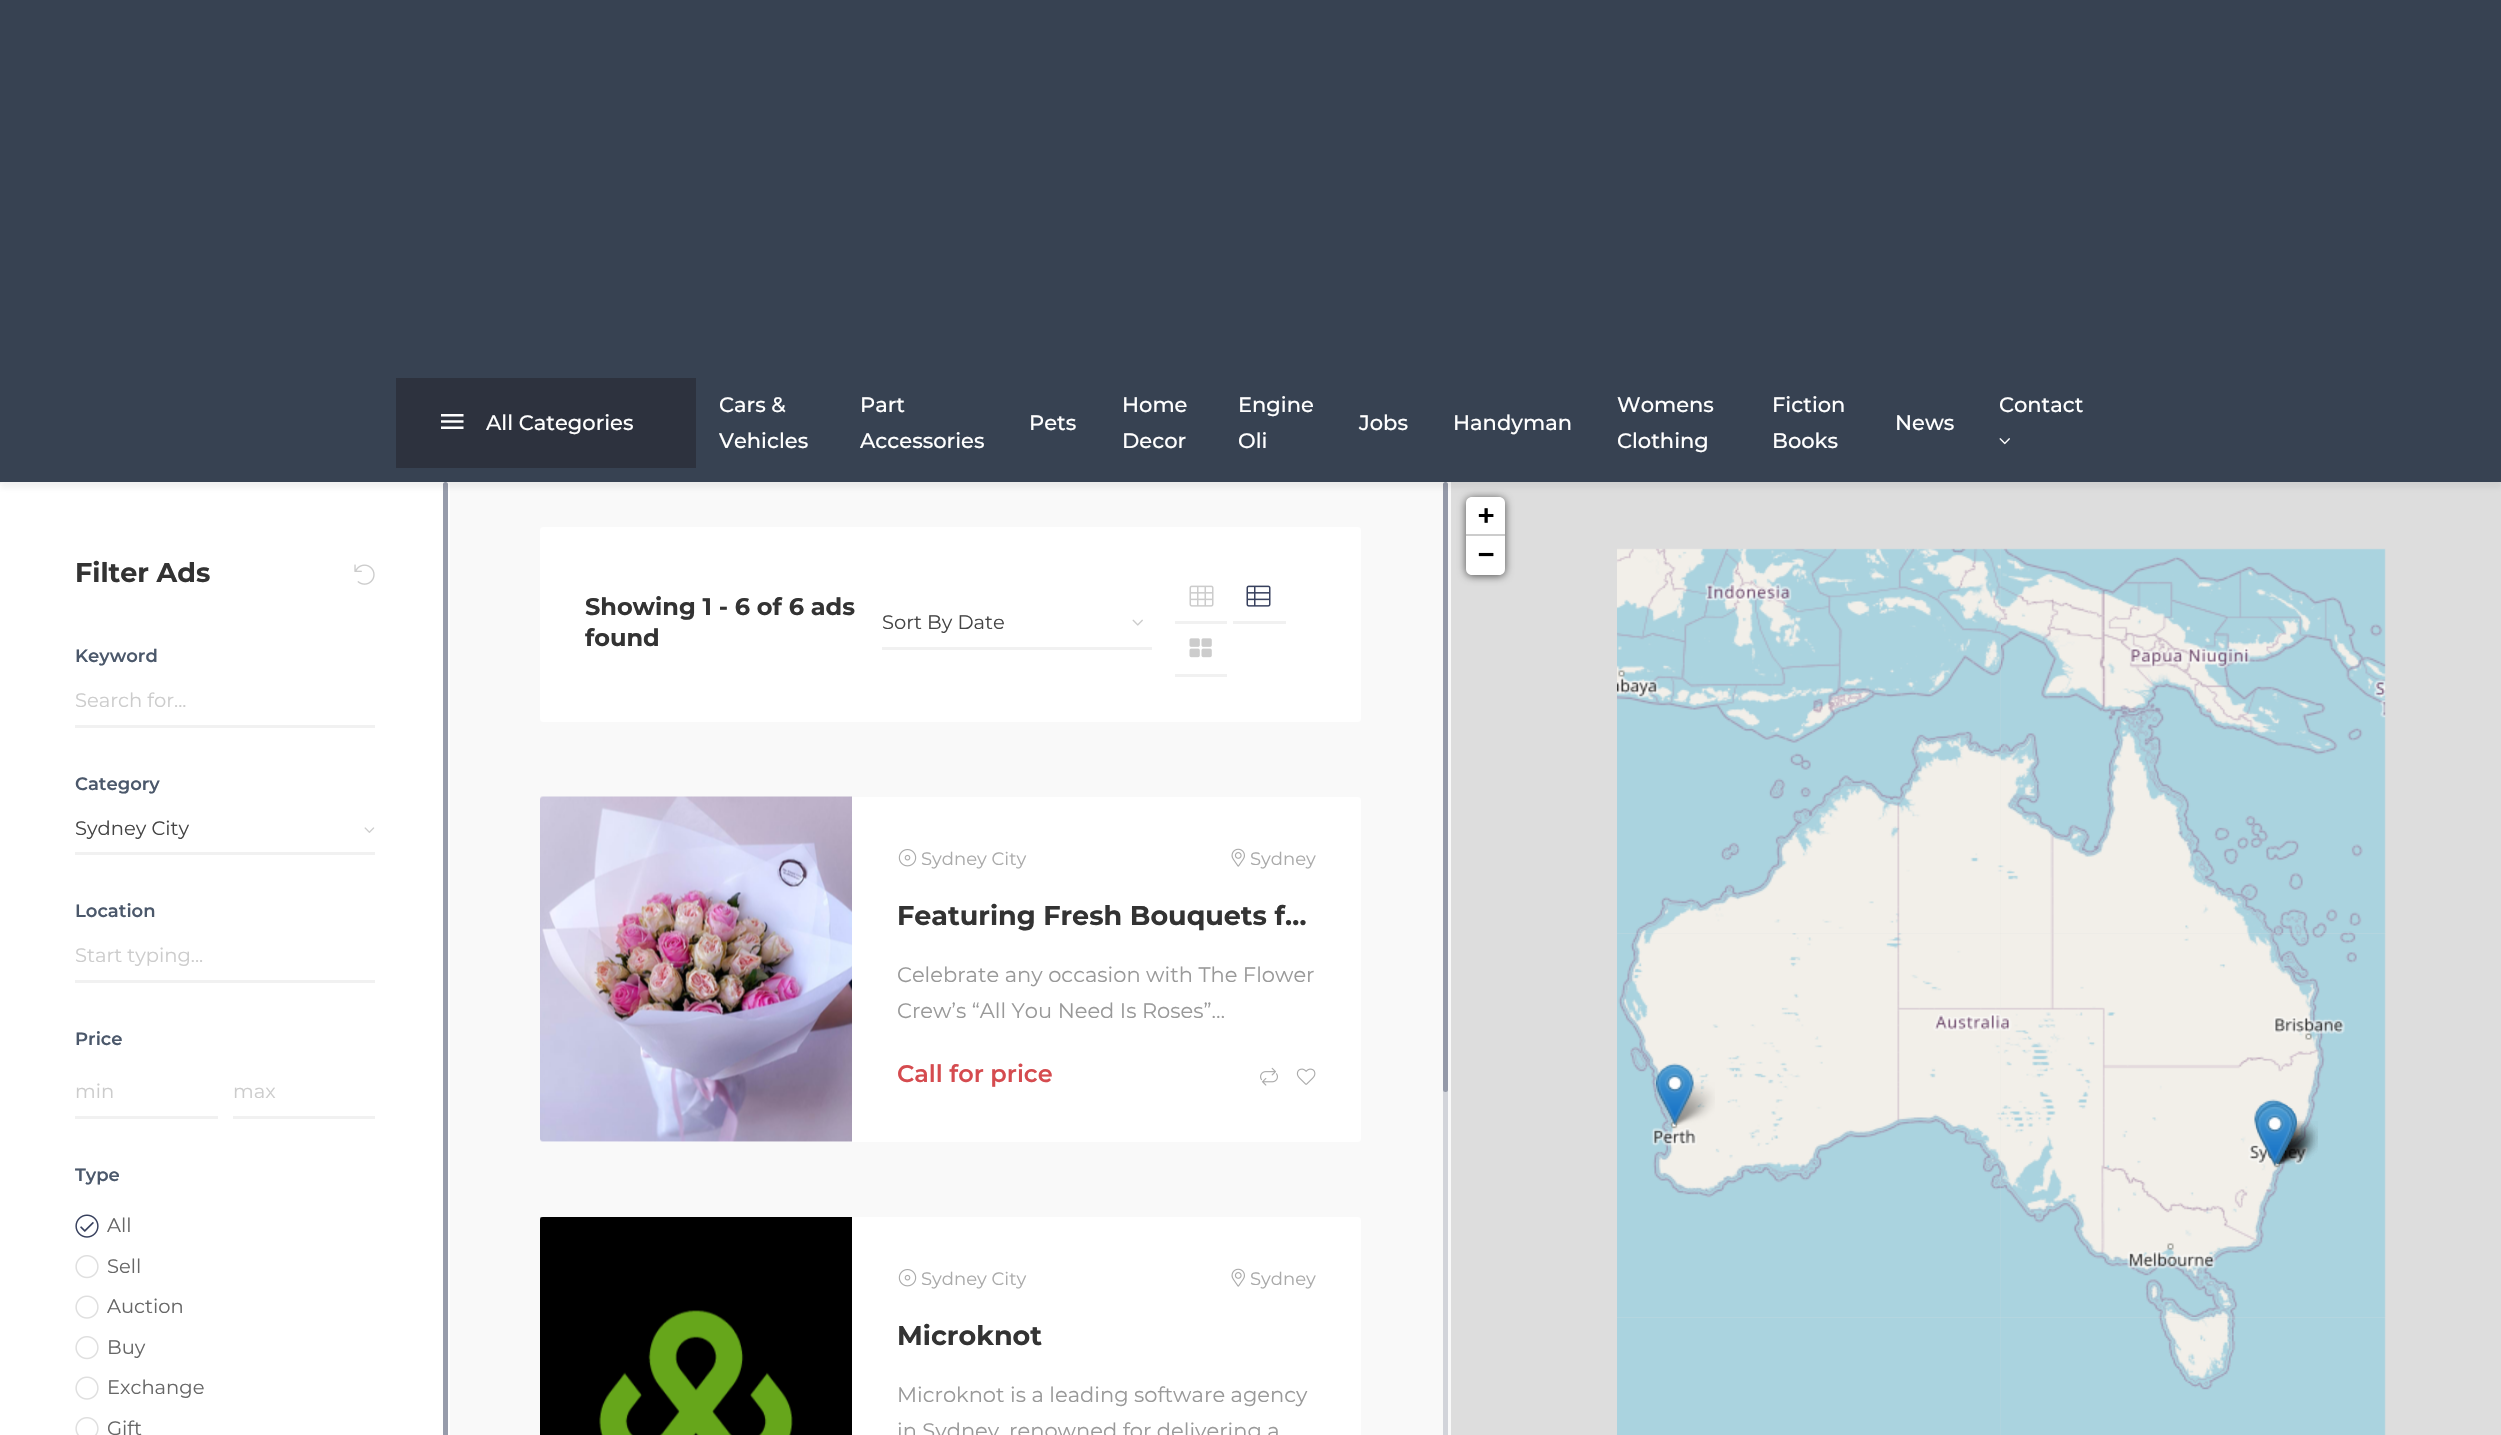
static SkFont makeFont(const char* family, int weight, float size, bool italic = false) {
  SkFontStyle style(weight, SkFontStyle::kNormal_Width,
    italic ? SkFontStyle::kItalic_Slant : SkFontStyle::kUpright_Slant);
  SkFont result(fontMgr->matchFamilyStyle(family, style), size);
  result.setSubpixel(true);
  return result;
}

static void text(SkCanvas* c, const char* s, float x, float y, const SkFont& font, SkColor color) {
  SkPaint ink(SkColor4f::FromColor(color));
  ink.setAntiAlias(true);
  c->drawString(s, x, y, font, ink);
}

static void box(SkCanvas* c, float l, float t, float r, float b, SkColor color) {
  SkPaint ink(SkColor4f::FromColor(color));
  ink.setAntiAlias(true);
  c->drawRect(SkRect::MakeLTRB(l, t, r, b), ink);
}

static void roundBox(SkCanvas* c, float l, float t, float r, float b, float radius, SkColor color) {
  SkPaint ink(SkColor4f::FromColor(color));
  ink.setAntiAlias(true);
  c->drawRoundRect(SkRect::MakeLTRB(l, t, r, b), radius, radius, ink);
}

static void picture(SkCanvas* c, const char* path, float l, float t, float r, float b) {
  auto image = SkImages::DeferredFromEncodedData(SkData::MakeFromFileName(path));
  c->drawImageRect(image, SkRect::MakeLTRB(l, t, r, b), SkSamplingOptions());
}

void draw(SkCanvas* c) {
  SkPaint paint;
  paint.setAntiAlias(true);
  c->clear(0xfff9f9f9);
  box(c, 1451, 482, 2501, 1435, 0xffdddddd);
  paint.setColor(0xa6000000);
  paint.setMaskFilter(SkMaskFilter::MakeBlur(kNormal_SkBlurStyle, 4));
  c->drawRoundRect(SkRect::MakeLTRB(1466, 498, 1505, 576), 6, 6, paint);
  paint.setMaskFilter(nullptr);
  paint.setColor(0xffffffff);
  c->drawPath(SkPathBuilder().moveTo(1472, 497).lineTo(1499, 497).cubicTo(1502.5f, 497, 1505, 499.5f, 1505, 503).lineTo(1505, 536).lineTo(1466, 536).lineTo(1466, 503).cubicTo(1466, 499.5f, 1468.5f, 497, 1472, 497).close().detach(), paint);
  c->drawPath(SkPathBuilder().moveTo(3, 482).lineTo(447, 482).cubicTo(448.5f, 482, 450, 483.5f, 450, 485).lineTo(450, 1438).lineTo(0, 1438).lineTo(0, 485).cubicTo(0, 483.5f, 1.5f, 482, 3, 482).close().detach(), paint);
  roundBox(c, 443, 482, 448, 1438, 2.5f, 0xffd7d9df);
  roundBox(c, 443, 482, 448, 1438, 2.5f, 0x6637405d);
  roundBox(c, 1443, 482, 1448, 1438, 2.5f, 0xffd2d4da);
  roundBox(c, 1443, 482, 1448, 1092, 2.5f, 0x6637405d);
  paint.setColor(0x0f171717);
  paint.setMaskFilter(SkMaskFilter::MakeBlur(kNormal_SkBlurStyle, 3));
  c->drawRect(SkRect::MakeLTRB(0, -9, 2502, 488), paint);
  paint.setMaskFilter(nullptr);
  box(c, 0, 0, 2501, 482, 0xff374252);
  box(c, 396, 378, 696, 468, 0xff2d323e);
  picture(c, "img_01.png", 441, 414, 464, 429);
  SkFont face1 = makeFont("Montserrat", 500, 21);
  text(c, "All Categories", 486, 430, face1, 0xffffffff);
  text(c, "Cars &", 719, 412, face1, 0xffffffff);
  text(c, "Vehicles", 719, 448, face1, 0xffffffff);
  text(c, "Part", 860, 412, face1, 0xffffffff);
  text(c, "Accessories", 860, 448, face1, 0xffffffff);
  text(c, "Home", 1122, 412, face1, 0xffffffff);
  text(c, "Decor", 1122, 448, face1, 0xffffffff);
  text(c, "Engine", 1238, 412, face1, 0xffffffff);
  text(c, "Oli", 1238, 448, face1, 0xffffffff);
  text(c, "Womens", 1617, 412, face1, 0xffffffff);
  text(c, "Clothing", 1617, 448, face1, 0xffffffff);
  text(c, "Fiction", 1772, 412, face1, 0xffffffff);
  text(c, "Books", 1772, 448, face1, 0xffffffff);
  text(c, "Contact", 1999, 412, face1, 0xffffffff);
  picture(c, "img_02.png", 1999, 438, 2010, 445);
  text(c, "Pets", 1029, 430, face1, 0xffffffff);
  text(c, "Jobs", 1359, 430, face1, 0xffffffff);
  text(c, "Handyman", 1453, 430, face1, 0xffffffff);
  text(c, "News", 1895, 430, face1, 0xffffffff);
  box(c, 1466, 534, 1505, 536, 0xffcccccc);
  SkFont face2 = makeFont("DejaVu Sans Mono", 700, 27);
  text(c, "+", 1478, 524, face2, 0xff000000);
  paint.setColor(0xffffffff);
  c->drawPath(SkPathBuilder().moveTo(1466, 536).lineTo(1505, 536).lineTo(1505, 569).cubicTo(1505, 572.5f, 1502.5f, 575, 1499, 575).lineTo(1472, 575).cubicTo(1468.5f, 575, 1466, 572.5f, 1466, 569).close().detach(), paint);
  text(c, "−", 1478, 563, face2, 0xff000000);
  picture(c, "img_05.png", 1617, 932, 2002, 1317);
  picture(c, "img_06.png", 2001, 932, 2386, 1317);
  picture(c, "img_03.png", 1617, 548, 2002, 933);
  picture(c, "img_04.png", 2001, 548, 2386, 933);
  picture(c, "img_07.png", 1617, 1317, 2002, 1435);
  picture(c, "img_08.png", 2001, 1316, 2386, 1435);
  picture(c, "img_15.png", 1669, 1082, 1715, 1125);
  picture(c, "img_09.png", 1656, 1063, 1694, 1125);
  picture(c, "img_20.png", 2269, 1123, 2315, 1166);
  picture(c, "img_16.png", 2269, 1119, 2313, 1161);
  picture(c, "img_17.png", 2275, 1121, 2318, 1164);
  picture(c, "img_18.png", 2275, 1121, 2318, 1164);
  picture(c, "img_19.png", 2275, 1121, 2318, 1164);
  picture(c, "img_10.png", 2254, 1099, 2293, 1161);
  picture(c, "img_11.png", 2259, 1102, 2297, 1164);
  picture(c, "img_12.png", 2259, 1102, 2297, 1164);
  picture(c, "img_13.png", 2259, 1102, 2297, 1164);
  picture(c, "img_14.png", 2256, 1105, 2294, 1166);
  SkFont face3 = makeFont("Montserrat", 700, 27);
  text(c, "Filter Ads", 75, 582, face3, 0xff333333);
  picture(c, "img_21.png", 354, 564, 375, 585);
  SkFont face4 = makeFont("Montserrat", 600, 18);
  text(c, "Keyword", 75, 662, face4, 0xff4b586b);
  box(c, 75, 725, 375, 728, 0xfff1f1f1);
  SkFont face5 = makeFont("Montserrat", 400, 19.5f);
  text(c, "Search for...", 75, 707, face5, 0xffcccccc);
  text(c, "Category", 75, 790, face4, 0xff4b586b);
  box(c, 75, 852, 375, 855, 0xfff1f1f1);
  text(c, "Sydney City", 75, 835, face5, 0xff444444);
  picture(c, "img_22.png", 364, 827, 375, 833);
  text(c, "Location", 75, 917, face4, 0xff4b586b);
  box(c, 75, 980, 375, 983, 0xfff1f1f1);
  text(c, "Start typing...", 75, 962, face5, 0xffcccccc);
  text(c, "Price", 75, 1045, face4, 0xff4b586b);
  box(c, 75, 1116, 218, 1119, 0xfff1f1f1);
  text(c, "min", 75, 1098, face5, 0xffcccccc);
  box(c, 233, 1116, 375, 1119, 0xfff1f1f1);
  text(c, "max", 233, 1098, face5, 0xffcccccc);
  text(c, "Type", 75, 1181, face4, 0xff4b586b);
  picture(c, "img_23.png", 75, 1214, 99, 1238);
  text(c, "All", 107, 1232, face5, 0xff666666);
  picture(c, "img_24.png", 75, 1255, 99, 1279);
  text(c, "Sell", 107, 1273, face5, 0xff666666);
  picture(c, "img_25.png", 75, 1295, 99, 1319);
  text(c, "Auction", 107, 1313, face5, 0xff666666);
  picture(c, "img_24.png", 75, 1336, 99, 1360);
  text(c, "Buy", 107, 1354, face5, 0xff666666);
  picture(c, "img_25.png", 75, 1376, 99, 1400);
  text(c, "Exchange", 107, 1394, face5, 0xff666666);
  picture(c, "img_26.png", 75, 1417, 99, 1435);
  text(c, "Gift", 107, 1435, face5, 0xff666666);
  roundBox(c, 540, 527, 1361, 722, 3, 0xffffffff);
  SkFont face6 = makeFont("Montserrat", 700, 24);
  text(c, "Showing 1 - 6 of 6 ads", 585, 615, face6, 0xff333333);
  text(c, "found", 585, 646, face6, 0xff333333);
  box(c, 882, 647, 1152, 650, 0xfff1f1f1);
  text(c, "Sort By Date", 882, 629, face5, 0xff444444);
  picture(c, "img_27.png", 1132, 619, 1143, 626);
  box(c, 1175, 621, 1227, 624, 0xfff1f1f1);
  picture(c, "img_28.png", 1189, 585, 1214, 607);
  box(c, 1233, 621, 1286, 624, 0xfff1f1f1);
  picture(c, "img_29.png", 1246, 585, 1271, 607);
  box(c, 1175, 674, 1227, 677, 0xfff1f1f1);
  picture(c, "img_30.png", 1189, 638, 1212, 658);
  roundBox(c, 540, 797, 1361, 1142, 3, 0xffffffff);
  picture(c, "img_31.png", 540, 796, 852, 1142);
  picture(c, "img_32.png", 898, 849, 917, 867);
  SkFont face7 = makeFont("Montserrat", 400, 18);
  text(c, "Sydney City", 921, 865, face7, 0xffaaaaaa);
  picture(c, "img_33.png", 1231, 848, 1245, 867);
  text(c, "Sydney", 1250, 865, face7, 0xffaaaaaa);
  text(c, "Featuring Fresh Bouquets f…", 897, 925, face3, 0xff333333);
  SkFont face8 = makeFont("Montserrat", 400, 21);
  text(c, "Celebrate any occasion with The Flower", 897, 982, face8, 0xff999999);
  text(c, "Crew’s “All You Need Is Roses”…", 897, 1018, face8, 0xff999999);
  SkFont face9 = makeFont("Montserrat", 600, 24);
  text(c, "Call for price", 897, 1082, face9, 0xffd54b4f);
  picture(c, "img_34.png", 1260, 1067, 1278, 1086);
  picture(c, "img_35.png", 1296, 1068, 1316, 1085);
  roundBox(c, 540, 1217, 1361, 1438, 3, 0xffffffff);
  picture(c, "img_36.png", 540, 1217, 852, 1435);
  picture(c, "img_32.png", 898, 1269, 917, 1287);
  text(c, "Sydney City", 921, 1285, face7, 0xffaaaaaa);
  picture(c, "img_33.png", 1231, 1268, 1245, 1287);
  text(c, "Sydney", 1250, 1285, face7, 0xffaaaaaa);
  text(c, "Microknot", 897, 1345, face3, 0xff333333);
  text(c, "Microknot is a leading software agency", 897, 1402, face8, 0xff999999);
  text(c, "in Sydney, renowned for delivering a", 897, 1438, face8, 0xff999999);
}
